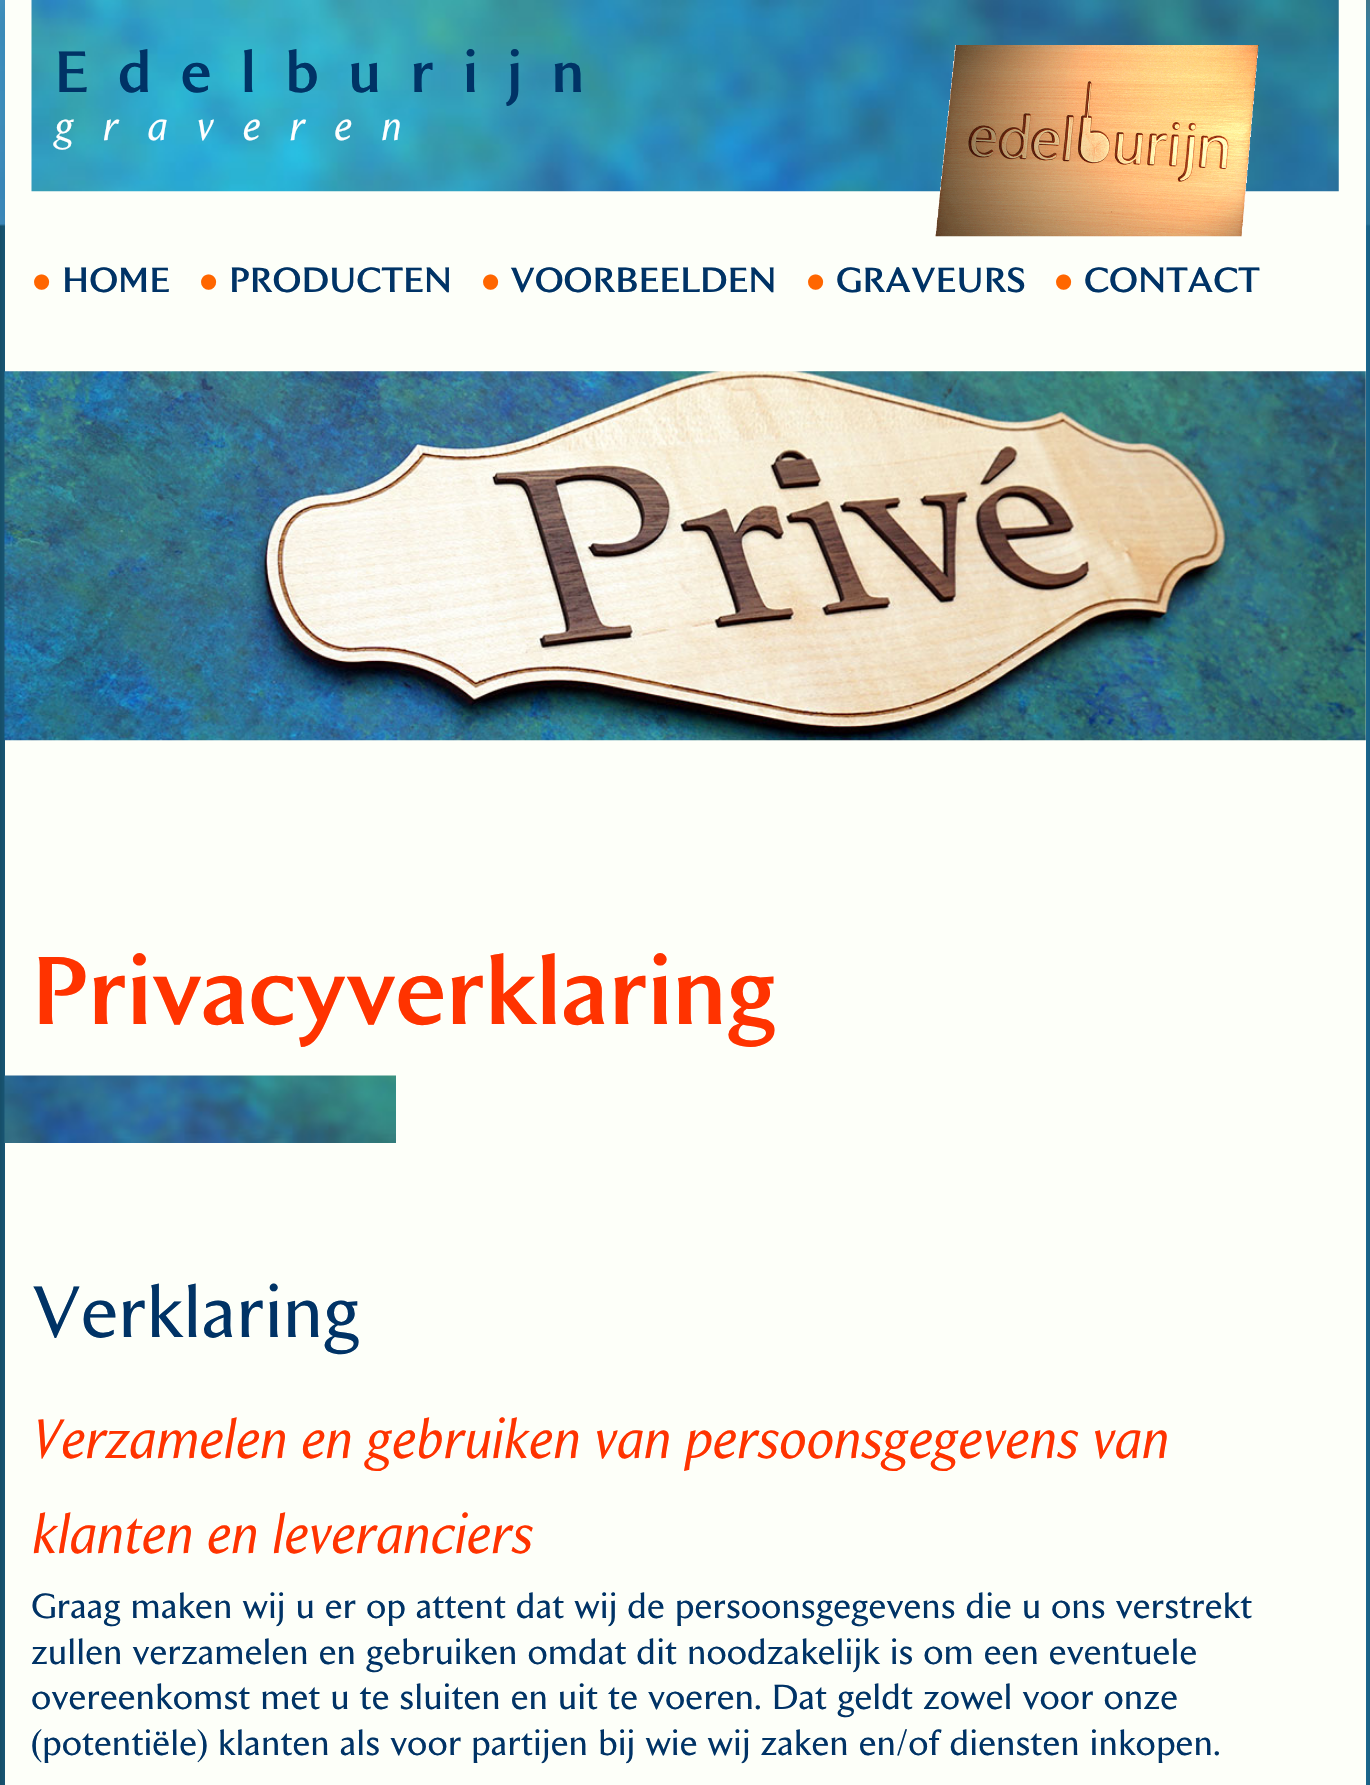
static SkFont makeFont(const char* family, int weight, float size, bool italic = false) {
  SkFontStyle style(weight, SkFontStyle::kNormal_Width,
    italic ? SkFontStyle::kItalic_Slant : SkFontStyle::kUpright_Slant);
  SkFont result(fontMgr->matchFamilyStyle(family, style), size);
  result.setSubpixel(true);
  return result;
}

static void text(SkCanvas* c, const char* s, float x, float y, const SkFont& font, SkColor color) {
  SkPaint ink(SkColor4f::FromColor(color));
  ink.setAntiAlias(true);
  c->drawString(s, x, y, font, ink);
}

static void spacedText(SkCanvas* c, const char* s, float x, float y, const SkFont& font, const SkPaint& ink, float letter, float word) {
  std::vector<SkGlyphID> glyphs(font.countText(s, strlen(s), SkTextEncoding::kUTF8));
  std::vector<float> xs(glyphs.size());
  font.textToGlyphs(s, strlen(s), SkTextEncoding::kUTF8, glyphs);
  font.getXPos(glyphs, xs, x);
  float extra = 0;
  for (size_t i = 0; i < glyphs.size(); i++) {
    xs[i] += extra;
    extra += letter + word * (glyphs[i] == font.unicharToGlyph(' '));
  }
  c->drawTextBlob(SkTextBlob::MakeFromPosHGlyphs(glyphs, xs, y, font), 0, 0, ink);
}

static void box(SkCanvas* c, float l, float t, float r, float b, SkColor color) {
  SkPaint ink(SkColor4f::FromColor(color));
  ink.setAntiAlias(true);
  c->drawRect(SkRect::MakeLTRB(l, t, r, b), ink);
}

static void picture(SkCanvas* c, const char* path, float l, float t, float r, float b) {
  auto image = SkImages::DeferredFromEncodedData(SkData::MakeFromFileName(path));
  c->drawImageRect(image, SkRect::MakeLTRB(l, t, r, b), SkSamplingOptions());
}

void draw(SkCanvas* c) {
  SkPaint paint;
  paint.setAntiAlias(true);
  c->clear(0xff11313d);
  picture(c, "img_01.png", 0, 0, 1370, 226);
  paint.setColor(0xff1e83b8);
  paint.setMaskFilter(SkMaskFilter::MakeBlur(kNormal_SkBlurStyle, 22.5f));
  c->drawRect(SkRect::MakeLTRB(9, 5, 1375, 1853), paint);
  paint.setMaskFilter(nullptr);
  box(c, 5, 0, 1366, 1785, 0xfffdfff9);
  picture(c, "img_02.png", 31, 0, 1339, 192);
  SkFont face1 = makeFont("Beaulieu", 500, 58.5f);
  paint.setColor(0xff003366);
  spacedText(c, "Edelburijn", 54, 92, face1, paint, 29.25f, 0);
  SkFont face2 = makeFont("Beaulieu", 400, 41, true);
  paint.setColor(0xffffffff);
  spacedText(c, "graveren", 54, 140, face2, paint, 29.25f, 0);
  picture(c, "img_03.png", 935, 45, 1259, 237);
  SkFont face3 = makeFont("Liberation Sans", 400, 35.1f);
  text(c, "●", 31, 292, face3, 0xffff6600);
  SkFont face4 = makeFont("Beaulieu", 500, 35.1f);
  text(c, "HOME", 62, 292, face4, 0xff003366);
  text(c, "●", 198, 292, face3, 0xffff6600);
  text(c, "PRODUCTEN", 229, 292, face4, 0xff003366);
  text(c, "●", 480, 292, face3, 0xffff6600);
  text(c, "VOORBEELDEN", 510, 292, face4, 0xff003366);
  text(c, "●", 805, 292, face3, 0xffff6600);
  text(c, "GRAVEURS", 836, 292, face4, 0xff003366);
  text(c, "●", 1053, 292, face3, 0xffff6600);
  text(c, "CONTACT", 1084, 292, face4, 0xff003366);
  picture(c, "img_04.png", 4, 371, 1366, 741);
  SkFont face5 = makeFont("Beaulieu", 500, 96.5f);
  text(c, "Privacyverklaring", 31, 1024, face5, 0xffff3300);
  picture(c, "img_05.png", 4, 1075, 396, 1143);
  SkFont face6 = makeFont("Beaulieu", 400, 73);
  text(c, "Verklaring", 31, 1337, face6, 0xff003366);
  SkFont face7 = makeFont("Beaulieu", 400, 55.6f, true);
  text(c, "Verzamelen en gebruiken van persoonsgegevens van", 31, 1458, face7, 0xffff3300);
  text(c, "klanten en leveranciers", 31, 1553, face7, 0xffff3300);
  SkFont face8 = makeFont("Beaulieu", 400, 35.1f);
  text(c, "Graag maken wij u er op attent dat wij de persoonsgegevens die u ons verstrekt", 31, 1618, face8, 0xff003366);
  text(c, "zullen verzamelen en gebruiken omdat dit noodzakelijk is om een eventuele", 31, 1664, face8, 0xff003366);
  text(c, "overeenkomst met u te sluiten en uit te voeren. Dat geldt zowel voor onze", 31, 1709, face8, 0xff003366);
  text(c, "(potentiële) klanten als voor partijen bij wie wij zaken en/of diensten inkopen.", 31, 1755, face8, 0xff003366);
}
